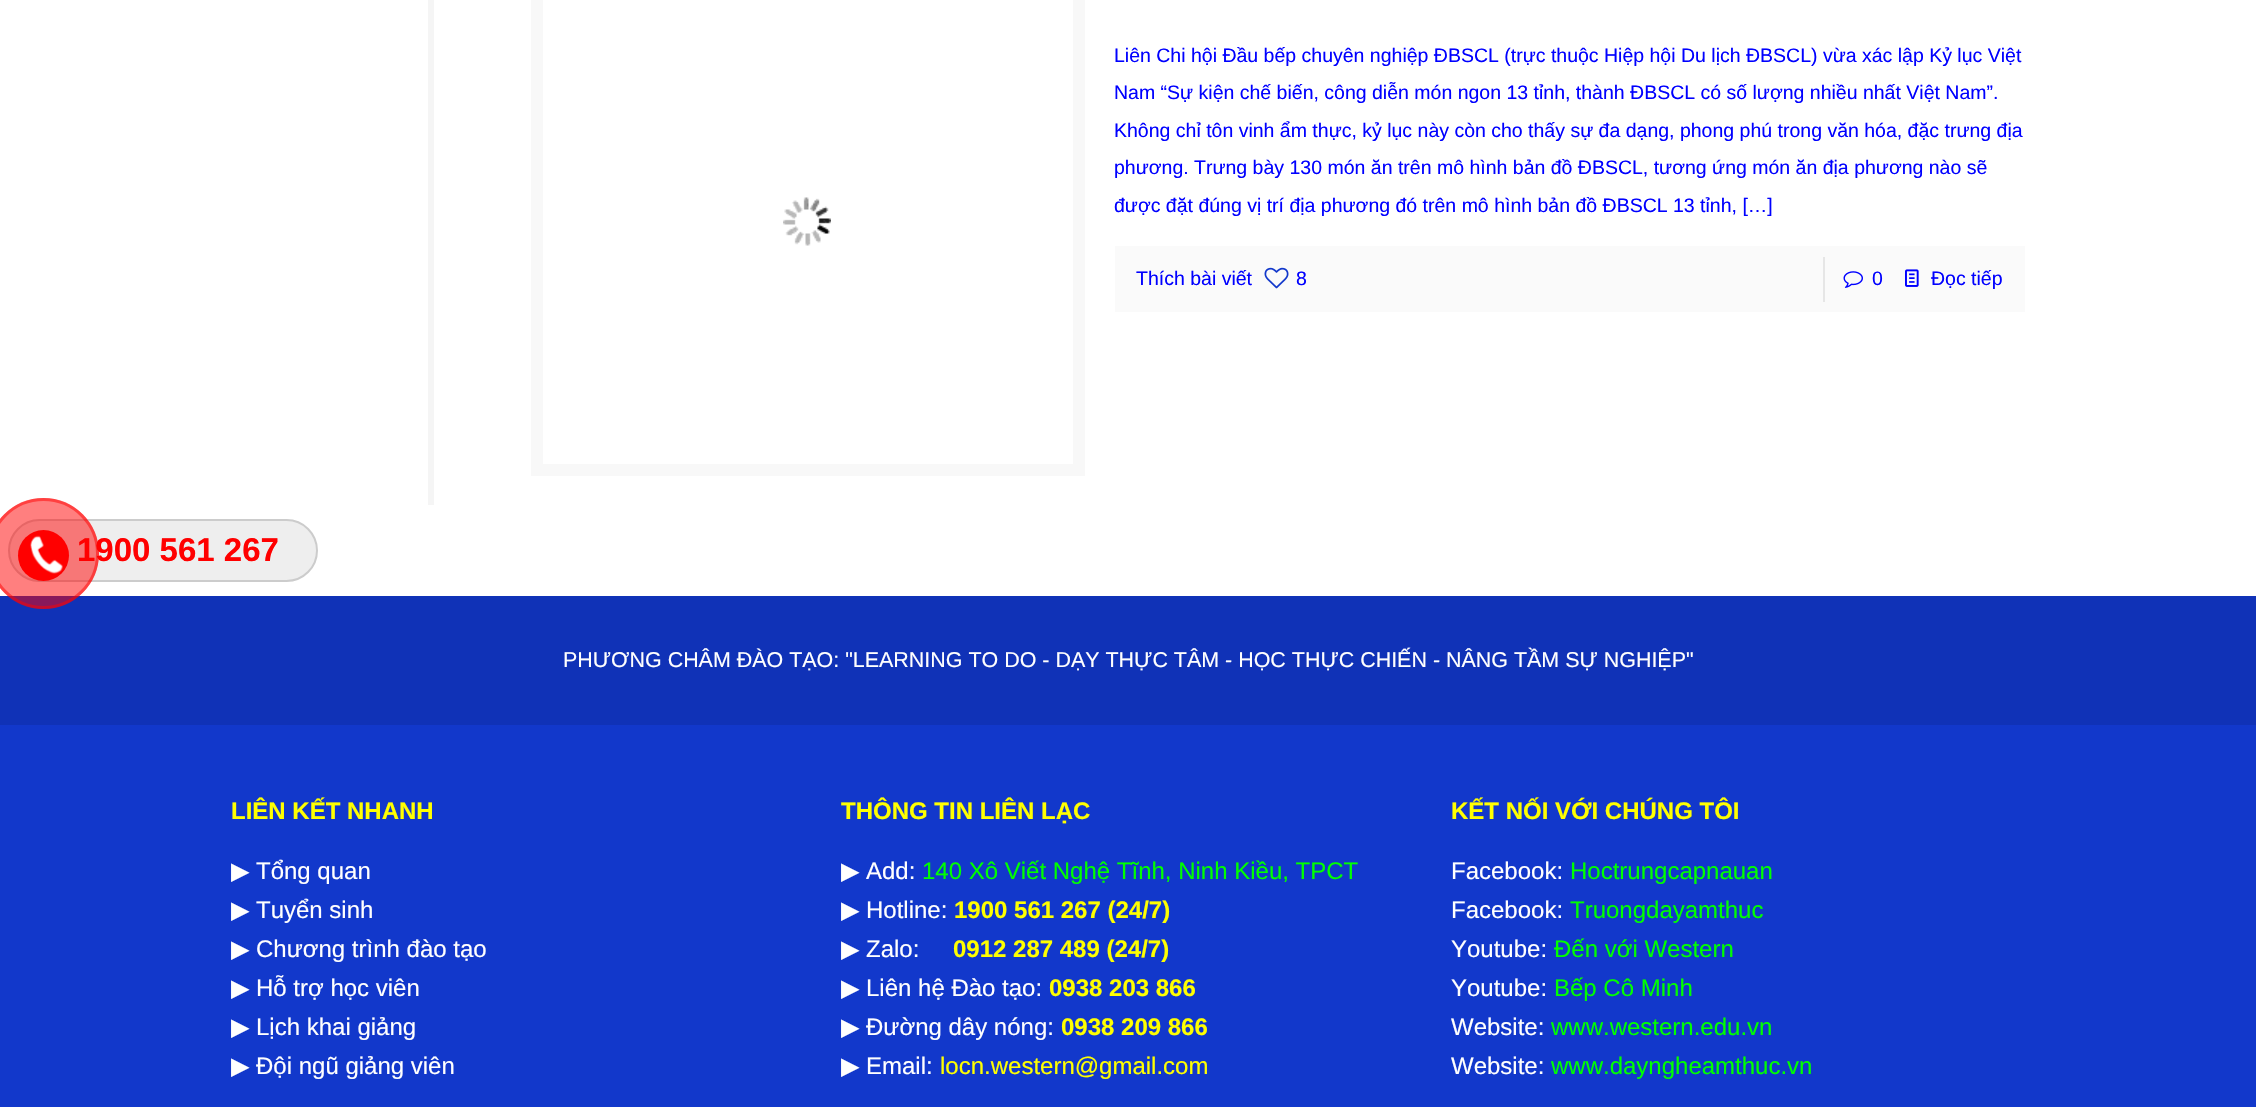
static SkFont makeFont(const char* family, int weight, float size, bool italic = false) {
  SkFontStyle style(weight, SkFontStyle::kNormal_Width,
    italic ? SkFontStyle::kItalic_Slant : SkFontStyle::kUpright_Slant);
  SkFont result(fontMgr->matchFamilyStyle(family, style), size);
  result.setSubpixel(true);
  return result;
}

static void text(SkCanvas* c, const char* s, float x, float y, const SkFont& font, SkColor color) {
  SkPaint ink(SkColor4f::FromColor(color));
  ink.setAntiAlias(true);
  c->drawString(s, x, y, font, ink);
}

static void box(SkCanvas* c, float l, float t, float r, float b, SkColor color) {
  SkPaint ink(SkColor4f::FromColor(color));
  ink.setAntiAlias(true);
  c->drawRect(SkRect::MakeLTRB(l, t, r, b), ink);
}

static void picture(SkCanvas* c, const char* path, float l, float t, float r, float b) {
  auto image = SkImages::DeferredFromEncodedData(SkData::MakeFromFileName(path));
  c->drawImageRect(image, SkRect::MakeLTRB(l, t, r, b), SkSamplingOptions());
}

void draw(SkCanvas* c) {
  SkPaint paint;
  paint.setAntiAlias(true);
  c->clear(0xffffffff);
  paint.setColor(0xffeeeeee);
  c->drawRoundRect(SkRect::MakeLTRB(9, 520, 317, 581), 30.5f, 30.5f, paint);
  paint.setStyle(SkPaint::kStroke_Style);
  paint.setStrokeWidth(2);
  paint.setColor(0xffcccccc);
  c->drawRoundRect(SkRect::MakeLTRB(9, 520, 317, 581), 30.5f, 30.5f, paint);
  SkFont face1 = makeFont("Liberation Sans", 700, 33);
  text(c, "1900 561 267", 77, 561, face1, 0xffff0000);
  box(c, 0, 596, 2256, 725, 0xff1032b7);
  paint.setStyle(SkPaint::kFill_Style);
  paint.setColor(0x80ff0000);
  c->drawCircle(43.5f, 553.5f, 55.5f, paint);
  paint.setStyle(SkPaint::kStroke_Style);
  paint.setStrokeWidth(3);
  c->drawCircle(43.5f, 553.5f, 54, paint);
  paint.setStyle(SkPaint::kFill_Style);
  paint.setColor(0xffff0000);
  c->drawCircle(43.5f, 555.5f, 25.5f, paint);
  picture(c, "img_01.png", 30, 535, 63, 574);
  box(c, 428, 0, 434, 505, 0xfff5f5f5);
  paint.setStyle(SkPaint::kStroke_Style);
  paint.setStrokeWidth(12);
  paint.setColor(0xfff8f8f8);
  c->drawRect(SkRect::MakeLTRB(537, -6, 1079, 470), paint);
  picture(c, "img_02.png", 783, 197, 831, 246);
  SkFont face2 = makeFont("Liberation Sans", 400, 19.5f);
  text(c, "Liên Chi hội Ðầu bếp chuyên nghiệp ÐBSCL (trực thuộc Hiệp hội Du lịch ÐBSCL) vừa xác lập Kỷ lục Việt", 1114, 62, face2, 0xff0000ff);
  text(c, "Nam “Sự kiện chế biến, công diễn món ngon 13 tỉnh, thành ÐBSCL có số lượng nhiều nhất Việt Nam”.", 1114, 99, face2, 0xff0000ff);
  text(c, "Không chỉ tôn vinh ẩm thực, kỷ lục này còn cho thấy sự đa dạng, phong phú trong văn hóa, đặc trưng địa", 1114, 137, face2, 0xff0000ff);
  text(c, "phương. Trưng bày 130 món ăn trên mô hình bản đồ ĐBSCL, tương ứng món ăn địa phương nào sẽ", 1114, 174, face2, 0xff0000ff);
  text(c, "được đặt đúng vị trí địa phương đó trên mô hình bản đồ ĐBSCL 13 tỉnh, […]", 1114, 212, face2, 0xff0000ff);
  box(c, 1115, 246, 2025, 312, 0xfffafafa);
  text(c, "Thích bài viết", 1136, 285, face2, 0xff0000ff);
  picture(c, "img_03.png", 1264, 267, 1289, 289);
  text(c, "8", 1296, 285, face2, 0xff0000ff);
  box(c, 1823, 257, 1825, 302, 0xffe6e6e6);
  picture(c, "img_04.png", 1843, 271, 1863, 288);
  text(c, "0", 1872, 285, face2, 0xff0000ff);
  picture(c, "img_05.png", 1905, 269, 1919, 287);
  text(c, "Đọc tiếp", 1931, 285, face2, 0xff0000ff);
  box(c, 0, 725, 2256, 1107, 0xff1238cb);
  SkFont face3 = makeFont("Liberation Sans", 400, 21.45f);
  text(c, "PHƯƠNG CHÂM ĐÀO TẠO: \"LEARNING TO DO - DẠY THỰC TÂM - HỌC THỰC CHIẾN - NÂNG TẦM SỰ NGHIỆP\"", 563, 667, face3, 0xffffffff);
  SkFont face4 = makeFont("Liberation Sans", 700, 24);
  text(c, "LIÊN KẾT NHANH", 231, 819, face4, 0xffffff00);
  SkFont face5 = makeFont("DejaVu Sans", 400, 24);
  text(c, "▶", 231, 879, face5, 0xffffffff);
  SkFont face6 = makeFont("Liberation Sans", 400, 24);
  text(c, "Tổng quan", 256, 879, face6, 0xffffffff);
  text(c, "▶", 231, 918, face5, 0xffffffff);
  text(c, "Tuyển sinh", 256, 918, face6, 0xffffffff);
  text(c, "▶", 231, 957, face5, 0xffffffff);
  text(c, "Chương trình đào tạo", 256, 957, face6, 0xffffffff);
  text(c, "▶", 231, 996, face5, 0xffffffff);
  text(c, "Hỗ trợ học viên", 256, 996, face6, 0xffffffff);
  text(c, "▶", 231, 1035, face5, 0xffffffff);
  text(c, "Lịch khai giảng", 256, 1035, face6, 0xffffffff);
  text(c, "▶", 231, 1074, face5, 0xffffffff);
  text(c, "Đội ngũ giảng viên", 256, 1074, face6, 0xffffffff);
  text(c, "THÔNG TIN LIÊN LẠC", 841, 819, face4, 0xffffff00);
  text(c, "▶", 841, 879, face5, 0xffffffff);
  text(c, "Add:", 866, 879, face6, 0xffffffff);
  text(c, "140 Xô Viết Nghệ Tĩnh, Ninh Kiều, TPCT", 922, 879, face6, 0xff00ff00);
  text(c, "▶", 841, 918, face5, 0xffffffff);
  text(c, "Hotline:", 866, 918, face6, 0xffffffff);
  text(c, "1900 561 267 (24/7)", 954, 918, face4, 0xffffff00);
  text(c, "▶", 841, 957, face5, 0xffffffff);
  text(c, "Zalo:", 866, 957, face6, 0xffffffff);
  text(c, "0912 287 489 (24/7)", 953, 957, face4, 0xffffff00);
  text(c, "▶", 841, 996, face5, 0xffffffff);
  text(c, "Liên hệ Đào tạo:", 866, 996, face6, 0xffffffff);
  text(c, "0938 203 866", 1049, 996, face4, 0xffffff00);
  text(c, "▶", 841, 1035, face5, 0xffffffff);
  text(c, "Đường dây nóng:", 866, 1035, face6, 0xffffffff);
  text(c, "0938 209 866", 1061, 1035, face4, 0xffffff00);
  text(c, "▶", 841, 1074, face5, 0xffffffff);
  text(c, "Email:", 866, 1074, face6, 0xffffffff);
  text(c, "locn.western@gmail.com", 940, 1074, face6, 0xffffff00);
  text(c, "KẾT NỐI VỚI CHÚNG TÔI", 1451, 819, face4, 0xffffff00);
  text(c, "Facebook:", 1451, 879, face6, 0xffffffff);
  text(c, "Hoctrungcapnauan", 1570, 879, face6, 0xff00ff00);
  text(c, "Facebook:", 1451, 918, face6, 0xffffffff);
  text(c, "Truongdayamthuc", 1570, 918, face6, 0xff00ff00);
  text(c, "Youtube:", 1451, 957, face6, 0xffffffff);
  text(c, "Đến với Western", 1554, 957, face6, 0xff00ff00);
  text(c, "Youtube:", 1451, 996, face6, 0xffffffff);
  text(c, "Bếp Cô Minh", 1554, 996, face6, 0xff00ff00);
  text(c, "Website:", 1451, 1035, face6, 0xffffffff);
  text(c, "www.western.edu.vn", 1551, 1035, face6, 0xff00ff00);
  text(c, "Website:", 1451, 1074, face6, 0xffffffff);
  text(c, "www.dayngheamthuc.vn", 1551, 1074, face6, 0xff00ff00);
}
